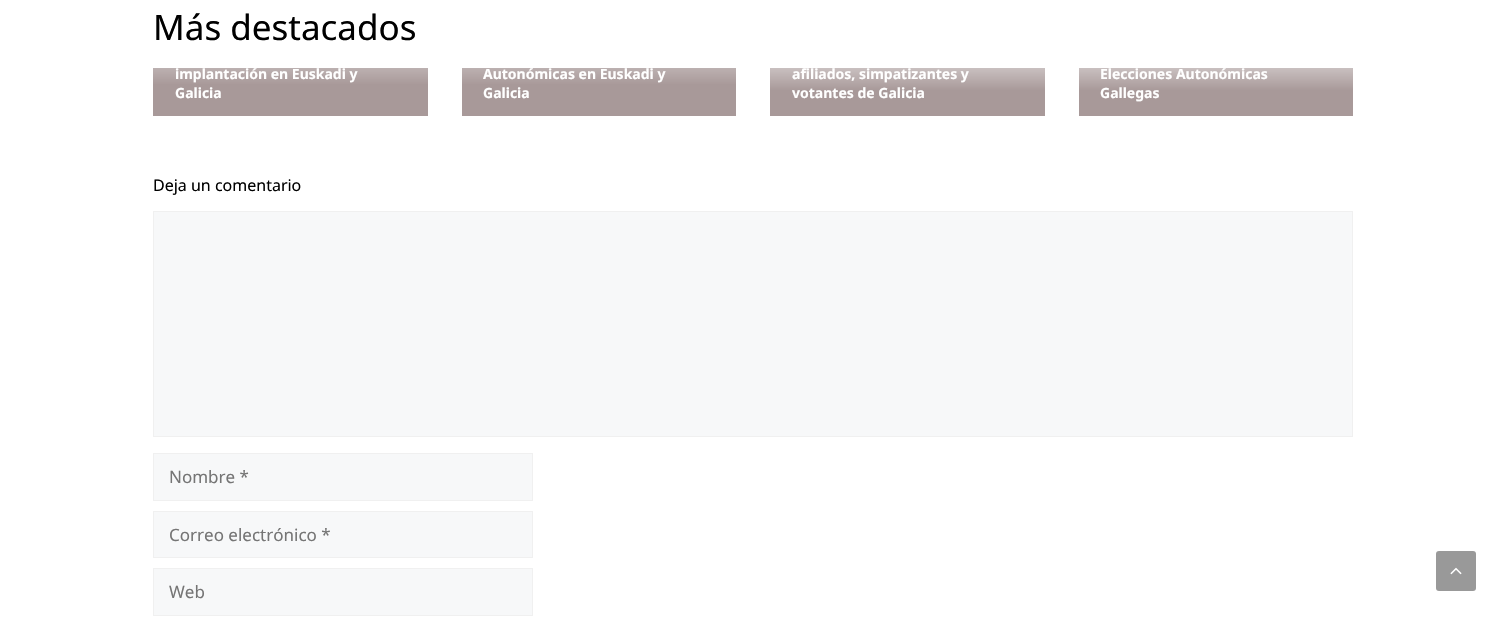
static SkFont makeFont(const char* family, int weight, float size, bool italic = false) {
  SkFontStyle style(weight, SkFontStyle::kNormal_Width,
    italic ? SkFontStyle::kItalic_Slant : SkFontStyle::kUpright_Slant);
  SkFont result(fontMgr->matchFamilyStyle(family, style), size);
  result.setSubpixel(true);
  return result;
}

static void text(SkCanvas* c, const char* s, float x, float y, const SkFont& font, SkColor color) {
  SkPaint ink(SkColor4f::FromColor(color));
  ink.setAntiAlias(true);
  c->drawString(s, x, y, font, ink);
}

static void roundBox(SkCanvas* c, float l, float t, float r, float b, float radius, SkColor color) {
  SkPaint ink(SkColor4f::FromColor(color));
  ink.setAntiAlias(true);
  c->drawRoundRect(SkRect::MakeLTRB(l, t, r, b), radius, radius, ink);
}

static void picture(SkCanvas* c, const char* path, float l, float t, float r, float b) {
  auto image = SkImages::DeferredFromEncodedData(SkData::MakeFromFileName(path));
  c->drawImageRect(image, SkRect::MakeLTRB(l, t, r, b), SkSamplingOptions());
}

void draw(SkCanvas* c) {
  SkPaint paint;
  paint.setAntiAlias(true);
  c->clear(0xffffffff);
  SkFont face1 = makeFont("Noto Sans", 400, 35);
  text(c, "Más destacados", 153, 40, face1, 0xff000000);
  {
    const SkColor colors[] = {0xffa89999, 0xffffffff};
    const float stops[] = {0.3f, 1};
    const SkPoint ends[] = {{291, 116}, {291, 12}};
    paint.setShader(SkGradientShader::MakeLinear(ends, colors, stops, 2, SkTileMode::kClamp));
    paint.setAlpha(255);
  }
  c->drawRect(SkRect::MakeLTRB(153, 68, 428, 116), paint);
  SkFont face2 = makeFont("Noto Sans", 700, 14);
  text(c, "implantación en Euskadi y", 175, 79, face2, 0xffffffff);
  text(c, "Galicia", 175, 98, face2, 0xffffffff);
  {
    const SkColor colors[] = {0xffa89999, 0xffffffff};
    const float stops[] = {0.3f, 1};
    const SkPoint ends[] = {{599, 116}, {599, 12}};
    paint.setShader(SkGradientShader::MakeLinear(ends, colors, stops, 2, SkTileMode::kClamp));
    paint.setAlpha(255);
  }
  c->drawRect(SkRect::MakeLTRB(462, 68, 736, 116), paint);
  text(c, "Autonómicas en Euskadi y", 483, 79, face2, 0xffffffff);
  text(c, "Galicia", 483, 98, face2, 0xffffffff);
  {
    const SkColor colors[] = {0xffa89999, 0xffffffff};
    const float stops[] = {0.3f, 1};
    const SkPoint ends[] = {{908, 116}, {908, 31}};
    paint.setShader(SkGradientShader::MakeLinear(ends, colors, stops, 2, SkTileMode::kClamp));
    paint.setAlpha(255);
  }
  c->drawRect(SkRect::MakeLTRB(770, 68, 1045, 116), paint);
  text(c, "afiliados, simpatizantes y", 792, 79, face2, 0xffffffff);
  text(c, "votantes de Galicia", 792, 98, face2, 0xffffffff);
  {
    const SkColor colors[] = {0xffa89999, 0xffffffff};
    const float stops[] = {0.3f, 1};
    const SkPoint ends[] = {{1216, 116}, {1216, 31}};
    paint.setShader(SkGradientShader::MakeLinear(ends, colors, stops, 2, SkTileMode::kClamp));
    paint.setAlpha(255);
  }
  c->drawRect(SkRect::MakeLTRB(1079, 68, 1353, 116), paint);
  text(c, "Elecciones Autonómicas", 1100, 79, face2, 0xffffffff);
  text(c, "Gallegas", 1100, 98, face2, 0xffffffff);
  SkFont face3 = makeFont("Noto Sans", 400, 16);
  text(c, "Deja un comentario", 153, 191, face3, 0xff000000);
  paint.setShader(nullptr);
  paint.setColor(0xfff7f8f9);
  c->drawRect(SkRect::MakeLTRB(153.5f, 211.5f, 1352.5f, 436.5f), paint);
  paint.setStyle(SkPaint::kStroke_Style);
  paint.setStrokeWidth(1);
  paint.setColor(0xfff0f0f0);
  c->drawRect(SkRect::MakeLTRB(153.5f, 211.5f, 1352.5f, 436.5f), paint);
  paint.setStyle(SkPaint::kFill_Style);
  paint.setColor(0xfff7f8f9);
  c->drawRect(SkRect::MakeLTRB(153.5f, 453.5f, 532.5f, 500.5f), paint);
  paint.setStyle(SkPaint::kStroke_Style);
  paint.setColor(0xfff0f0f0);
  c->drawRect(SkRect::MakeLTRB(153.5f, 453.5f, 532.5f, 500.5f), paint);
  SkFont face4 = makeFont("Noto Sans", 400, 17);
  text(c, "Nombre *", 169, 483, face4, 0xff757575);
  paint.setStyle(SkPaint::kFill_Style);
  paint.setColor(0xfff7f8f9);
  c->drawRect(SkRect::MakeLTRB(153.5f, 511.5f, 532.5f, 557.5f), paint);
  paint.setStyle(SkPaint::kStroke_Style);
  paint.setColor(0xfff0f0f0);
  c->drawRect(SkRect::MakeLTRB(153.5f, 511.5f, 532.5f, 557.5f), paint);
  text(c, "Correo electrónico *", 169, 541, face4, 0xff757575);
  paint.setStyle(SkPaint::kFill_Style);
  paint.setColor(0xfff7f8f9);
  c->drawRect(SkRect::MakeLTRB(153.5f, 568.5f, 532.5f, 615.5f), paint);
  paint.setStyle(SkPaint::kStroke_Style);
  paint.setColor(0xfff0f0f0);
  c->drawRect(SkRect::MakeLTRB(153.5f, 568.5f, 532.5f, 615.5f), paint);
  text(c, "Web", 169, 598, face4, 0xff757575);
  roundBox(c, 1436, 551, 1476, 591, 3, 0xff999999);
  picture(c, "img_01.png", 1450, 567, 1462, 575);
}
